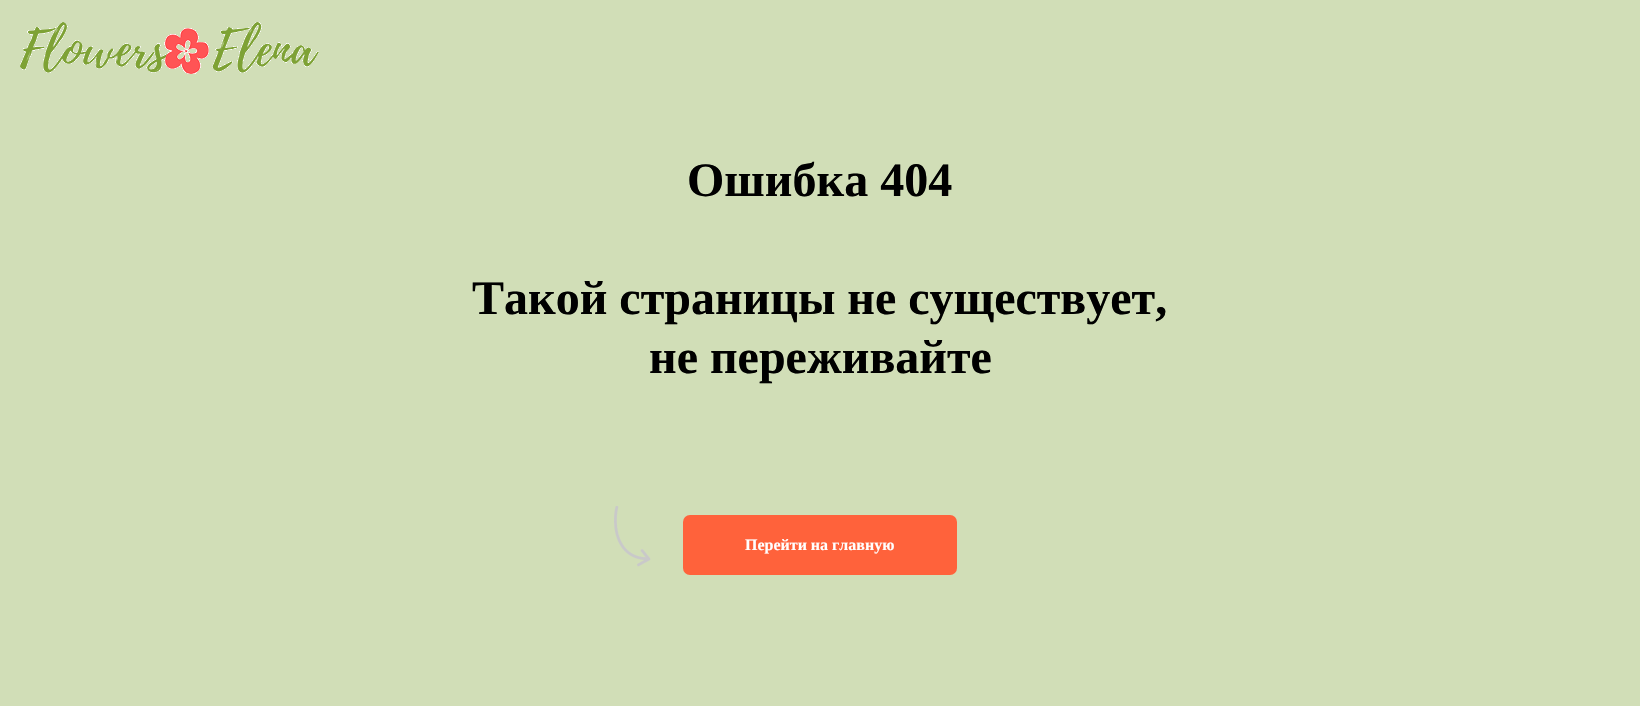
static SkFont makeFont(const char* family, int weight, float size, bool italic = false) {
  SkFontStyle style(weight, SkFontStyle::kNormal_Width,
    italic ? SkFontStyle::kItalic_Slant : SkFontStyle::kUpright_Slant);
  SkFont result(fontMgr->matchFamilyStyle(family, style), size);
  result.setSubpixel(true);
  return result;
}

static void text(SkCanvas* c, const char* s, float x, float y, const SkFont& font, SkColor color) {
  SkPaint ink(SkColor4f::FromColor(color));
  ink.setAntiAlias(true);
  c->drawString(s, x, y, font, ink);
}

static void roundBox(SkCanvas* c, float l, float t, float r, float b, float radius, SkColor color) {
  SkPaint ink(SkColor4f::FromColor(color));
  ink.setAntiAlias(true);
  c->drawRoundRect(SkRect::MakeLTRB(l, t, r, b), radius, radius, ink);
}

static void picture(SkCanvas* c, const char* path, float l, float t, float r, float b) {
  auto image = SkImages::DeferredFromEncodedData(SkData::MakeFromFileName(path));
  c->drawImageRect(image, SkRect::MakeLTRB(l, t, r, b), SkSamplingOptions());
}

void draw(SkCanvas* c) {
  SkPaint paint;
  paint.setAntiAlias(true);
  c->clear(0xffd1deb7);
  picture(c, "img_01.png", 20, 22, 319, 74);
  SkFont face1 = makeFont("Liberation Serif", 700, 48);
  text(c, "Ошибка 404", 687, 196, face1, 0xff000000);
  text(c, "Такой страницы не существует,", 472, 314, face1, 0xff000000);
  text(c, "не переживайте", 649, 373, face1, 0xff000000);
  picture(c, "img_02.png", 614, 506, 651, 567);
  roundBox(c, 683, 515, 957, 575, 7, 0xffff623b);
  SkFont face2 = makeFont("Liberation Serif", 700, 16);
  text(c, "Перейти на главную", 745, 550, face2, 0xffffffff);
}
